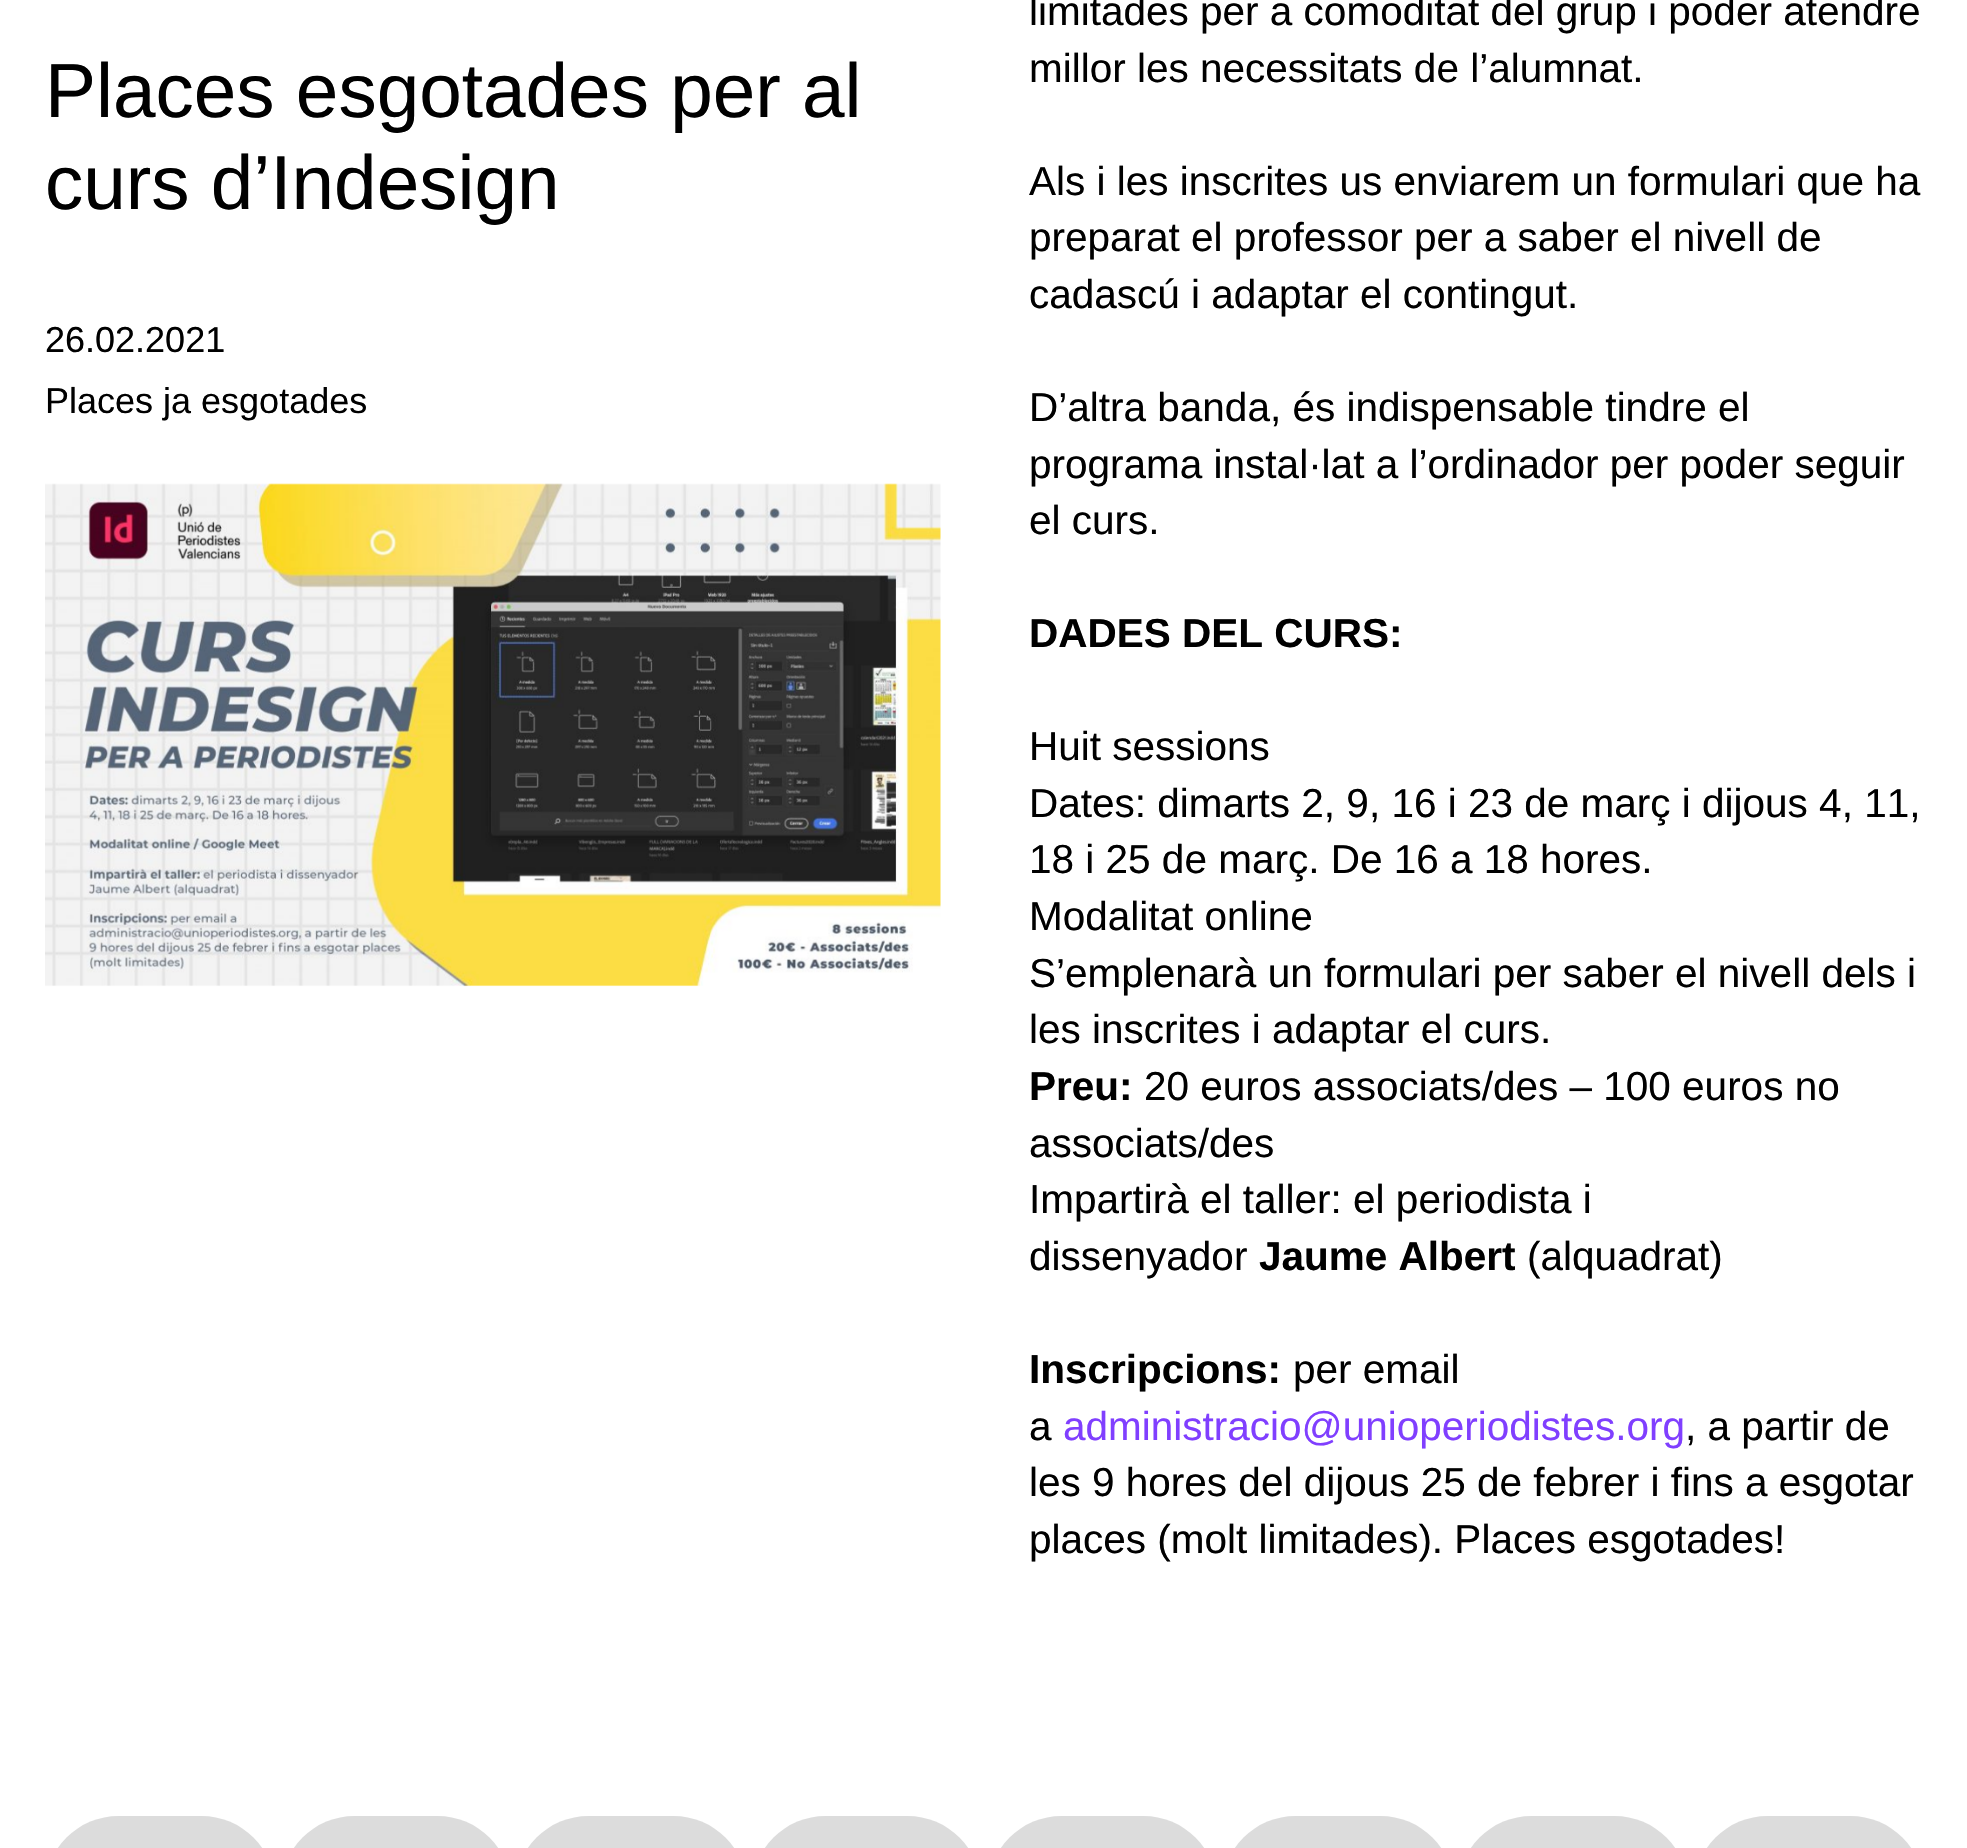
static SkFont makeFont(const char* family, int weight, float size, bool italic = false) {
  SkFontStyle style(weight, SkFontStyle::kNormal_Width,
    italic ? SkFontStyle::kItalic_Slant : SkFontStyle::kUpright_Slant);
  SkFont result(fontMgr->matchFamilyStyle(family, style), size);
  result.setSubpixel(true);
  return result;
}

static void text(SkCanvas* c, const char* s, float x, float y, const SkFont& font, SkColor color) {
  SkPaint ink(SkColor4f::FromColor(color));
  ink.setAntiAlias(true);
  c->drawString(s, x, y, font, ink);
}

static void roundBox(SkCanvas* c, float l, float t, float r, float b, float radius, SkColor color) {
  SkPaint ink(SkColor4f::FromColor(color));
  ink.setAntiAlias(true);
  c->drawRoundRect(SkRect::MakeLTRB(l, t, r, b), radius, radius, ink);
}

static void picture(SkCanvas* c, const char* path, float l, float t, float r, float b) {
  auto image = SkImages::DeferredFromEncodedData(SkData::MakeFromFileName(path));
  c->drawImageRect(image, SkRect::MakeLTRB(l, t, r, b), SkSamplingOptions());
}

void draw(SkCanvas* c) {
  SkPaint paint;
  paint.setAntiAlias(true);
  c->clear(0xffffffff);
  SkFont face1 = makeFont("Liberation Sans", 400, 76.5f);
  text(c, "Places esgotades per al", 45, 117, face1, 0xff000000);
  text(c, "curs d’Indesign", 45, 209, face1, 0xff000000);
  SkFont face2 = makeFont("Liberation Sans", 400, 36);
  text(c, "26.02.2021", 45, 352, face2, 0xff000000);
  text(c, "Places ja esgotades", 45, 413, face2, 0xff000000);
  picture(c, "img_01.png", 45, 483, 941, 987);
  SkFont face3 = makeFont("Liberation Sans", 400, 40.5f);
  text(c, "limitades per a comoditat del grup i poder atendre", 1029, 25, face3, 0xff000000);
  text(c, "millor les necessitats de l’alumnat.", 1029, 82, face3, 0xff000000);
  text(c, "Als i les inscrites us enviarem un formulari que ha", 1029, 195, face3, 0xff000000);
  text(c, "preparat el professor per a saber el nivell de", 1029, 251, face3, 0xff000000);
  text(c, "cadascú i adaptar el contingut.", 1029, 308, face3, 0xff000000);
  text(c, "D’altra banda, és indispensable tindre el", 1029, 421, face3, 0xff000000);
  text(c, "programa instal·lat a l’ordinador per poder seguir", 1029, 478, face3, 0xff000000);
  text(c, "el curs.", 1029, 534, face3, 0xff000000);
  SkFont face4 = makeFont("Liberation Sans", 700, 40.5f);
  text(c, "DADES DEL CURS:", 1029, 647, face4, 0xff000000);
  text(c, "Huit sessions", 1029, 760, face3, 0xff000000);
  text(c, "Dates: dimarts 2, 9, 16 i 23 de març i dijous 4, 11,", 1029, 817, face3, 0xff000000);
  text(c, "18 i 25 de març. De 16 a 18 hores.", 1029, 873, face3, 0xff000000);
  text(c, "Modalitat online", 1029, 930, face3, 0xff000000);
  text(c, "S’emplenarà un formulari per saber el nivell dels i", 1029, 987, face3, 0xff000000);
  text(c, "les inscrites i adaptar el curs.", 1029, 1043, face3, 0xff000000);
  text(c, "Preu:", 1029, 1100, face4, 0xff000000);
  text(c, "20 euros associats/des – 100 euros no", 1144, 1100, face3, 0xff000000);
  text(c, "associats/des", 1029, 1157, face3, 0xff000000);
  text(c, "Impartirà el taller: el periodista i", 1029, 1213, face3, 0xff000000);
  text(c, "dissenyador", 1029, 1270, face3, 0xff000000);
  text(c, "Jaume Albert", 1259, 1270, face4, 0xff000000);
  text(c, "(alquadrat)", 1527, 1270, face3, 0xff000000);
  text(c, "Inscripcions:", 1029, 1383, face4, 0xff000000);
  text(c, "per email", 1293, 1383, face3, 0xff000000);
  text(c, "a", 1029, 1440, face3, 0xff000000);
  text(c, "administracio@unioperiodistes.org", 1063, 1440, face3, 0xff803fff);
  text(c, ", a partir de", 1685, 1440, face3, 0xff000000);
  text(c, "les 9 hores del dijous 25 de febrer i fins a esgotar", 1029, 1496, face3, 0xff000000);
  text(c, "places (molt limitades). Places esgotades!", 1029, 1553, face3, 0xff000000);
  roundBox(c, 45, 1816, 275, 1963, 114.5f, 0xffdcdcdc);
  roundBox(c, 281, 1816, 511, 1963, 114.5f, 0xffdcdcdc);
  roundBox(c, 515, 1816, 747, 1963, 114.5f, 0xffdcdcdc);
  roundBox(c, 752, 1816, 981, 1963, 114.5f, 0xffdcdcdc);
  roundBox(c, 988, 1816, 1217, 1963, 114.5f, 0xffdcdcdc);
  roundBox(c, 1222, 1816, 1454, 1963, 114.5f, 0xffdcdcdc);
  roundBox(c, 1458, 1816, 1688, 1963, 114.5f, 0xffdcdcdc);
  roundBox(c, 1694, 1816, 1924, 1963, 114.5f, 0xffdcdcdc);
}
